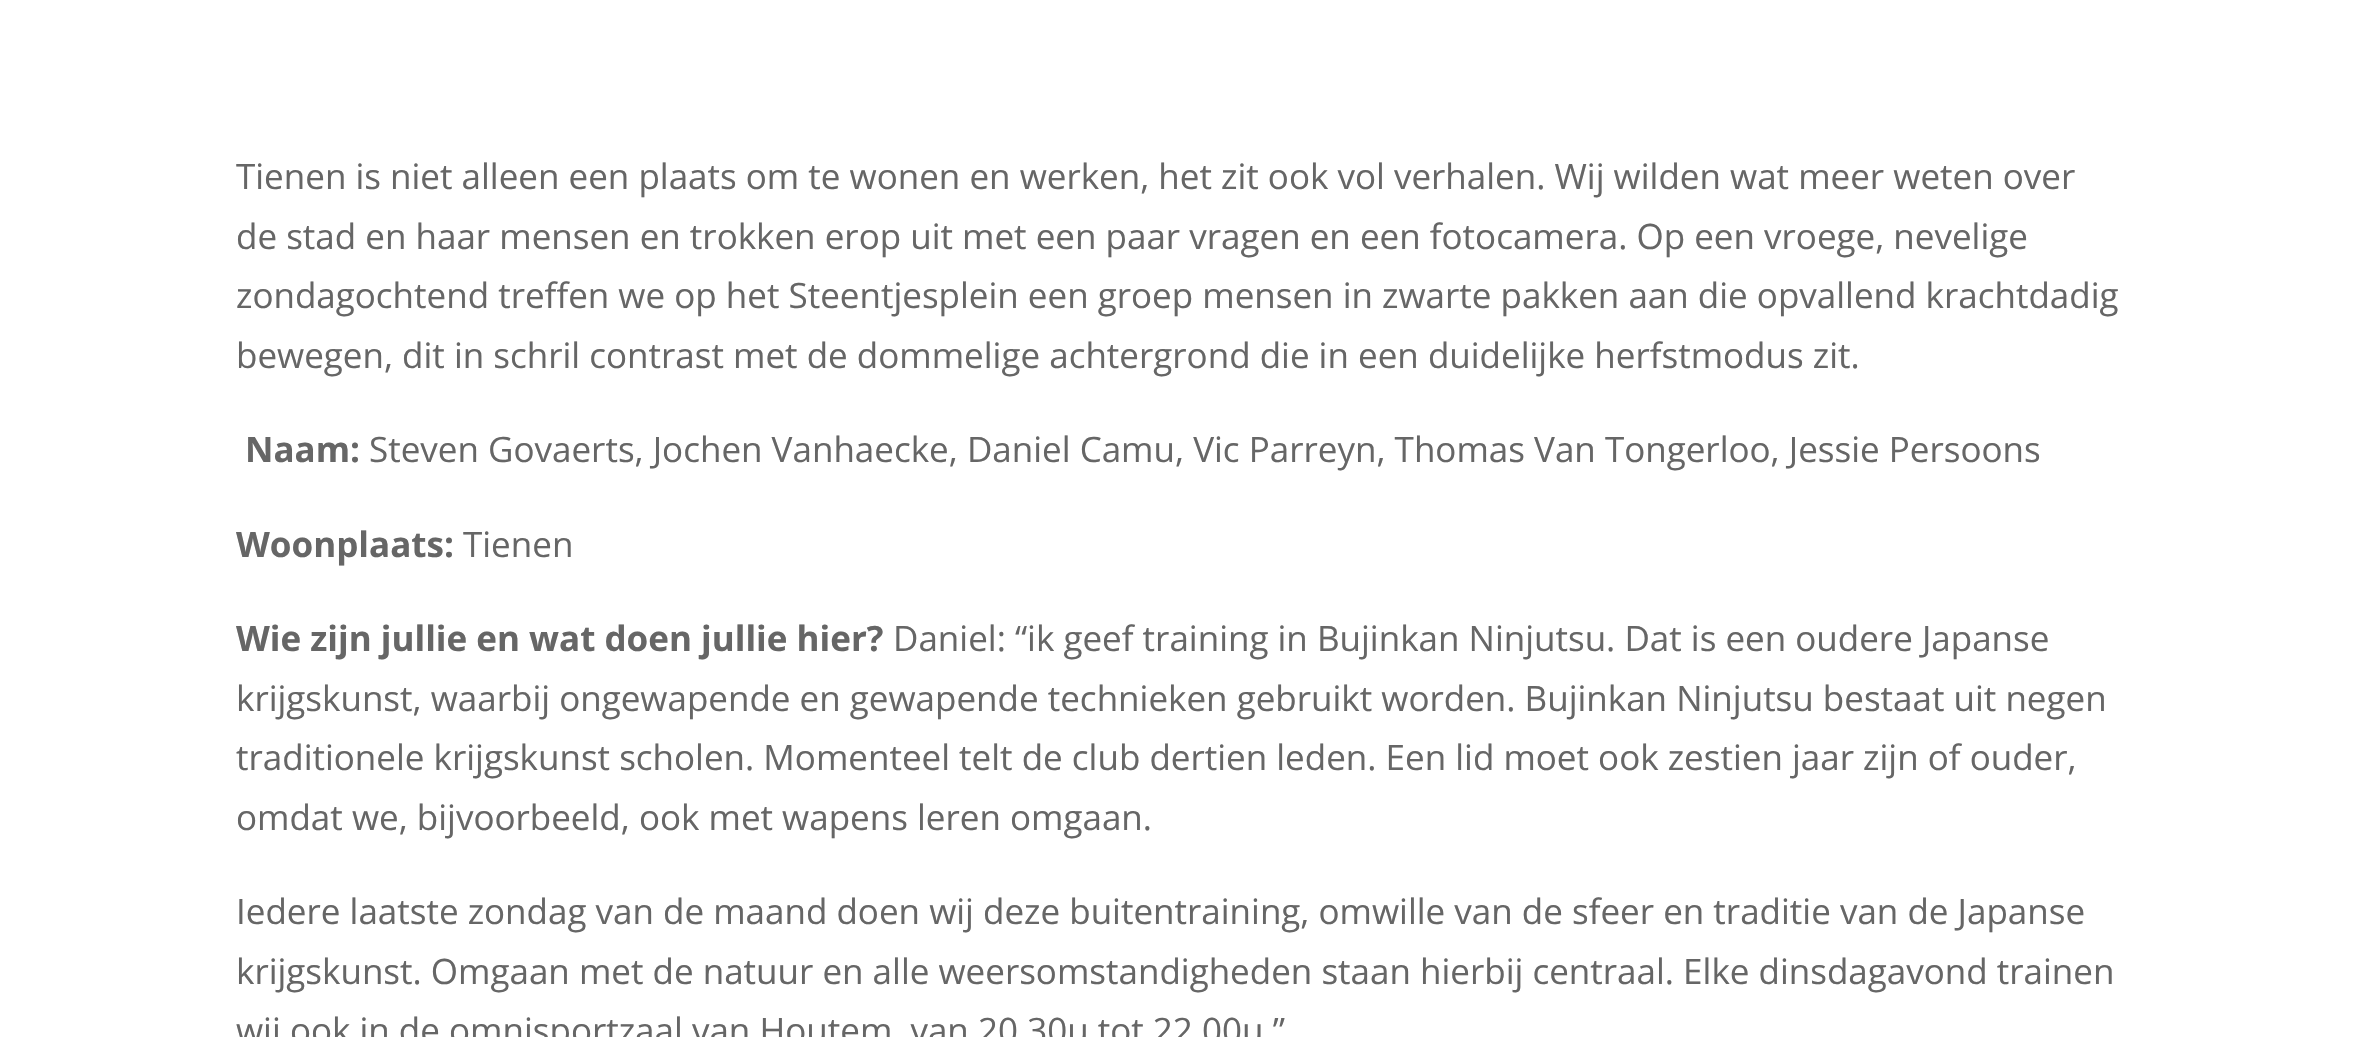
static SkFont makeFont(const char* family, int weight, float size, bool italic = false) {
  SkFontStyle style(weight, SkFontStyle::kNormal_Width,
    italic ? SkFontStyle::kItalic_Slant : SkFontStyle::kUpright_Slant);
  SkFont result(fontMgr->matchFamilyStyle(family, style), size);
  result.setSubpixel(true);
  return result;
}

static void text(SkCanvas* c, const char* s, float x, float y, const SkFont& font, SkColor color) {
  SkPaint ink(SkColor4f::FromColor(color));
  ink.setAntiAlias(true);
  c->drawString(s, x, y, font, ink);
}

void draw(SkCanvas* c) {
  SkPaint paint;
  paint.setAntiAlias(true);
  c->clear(0xffffffff);
  SkFont face1 = makeFont("Open Sans", 400, 35);
  text(c, "Tienen is niet alleen een plaats om te wonen en werken, het zit ook vol verhalen. Wij wilden wat meer weten over", 236, 189, face1, 0xff666666);
  text(c, "de stad en haar mensen en trokken erop uit met een paar vragen en een fotocamera. Op een vroege, nevelige", 236, 249, face1, 0xff666666);
  text(c, "zondagochtend treffen we op het Steentjesplein een groep mensen in zwarte pakken aan die opvallend krachtdadig", 236, 308, face1, 0xff666666);
  text(c, "bewegen, dit in schril contrast met de dommelige achtergrond die in een duidelijke herfstmodus zit.", 236, 368, face1, 0xff666666);
  SkFont face2 = makeFont("Open Sans", 700, 35);
  text(c, "Naam:", 245, 462, face2, 0xff666666);
  text(c, "Steven Govaerts, Jochen Vanhaecke, Daniel Camu, Vic Parreyn, Thomas Van Tongerloo, Jessie Persoons", 369, 462, face1, 0xff666666);
  text(c, "Woonplaats:", 236, 557, face2, 0xff666666);
  text(c, "Tienen", 463, 557, face1, 0xff666666);
  text(c, "Wie zijn jullie en wat doen jullie hier?", 236, 651, face2, 0xff666666);
  text(c, "Daniel: “ik geef training in Bujinkan Ninjutsu. Dat is een oudere Japanse", 893, 651, face1, 0xff666666);
  text(c, "krijgskunst, waarbij ongewapende en gewapende technieken gebruikt worden. Bujinkan Ninjutsu bestaat uit negen", 236, 711, face1, 0xff666666);
  text(c, "traditionele krijgskunst scholen. Momenteel telt de club dertien leden. Een lid moet ook zestien jaar zijn of ouder,", 236, 770, face1, 0xff666666);
  text(c, "omdat we, bijvoorbeeld, ook met wapens leren omgaan.", 236, 830, face1, 0xff666666);
  text(c, "Iedere laatste zondag van de maand doen wij deze buitentraining, omwille van de sfeer en traditie van de Japanse", 236, 924, face1, 0xff666666);
  text(c, "krijgskunst. Omgaan met de natuur en alle weersomstandigheden staan hierbij centraal. Elke dinsdagavond trainen", 236, 984, face1, 0xff666666);
  text(c, "wij ook in de omnisportzaal van Houtem, van 20.30u tot 22.00u.”", 236, 1043, face1, 0xff666666);
}
